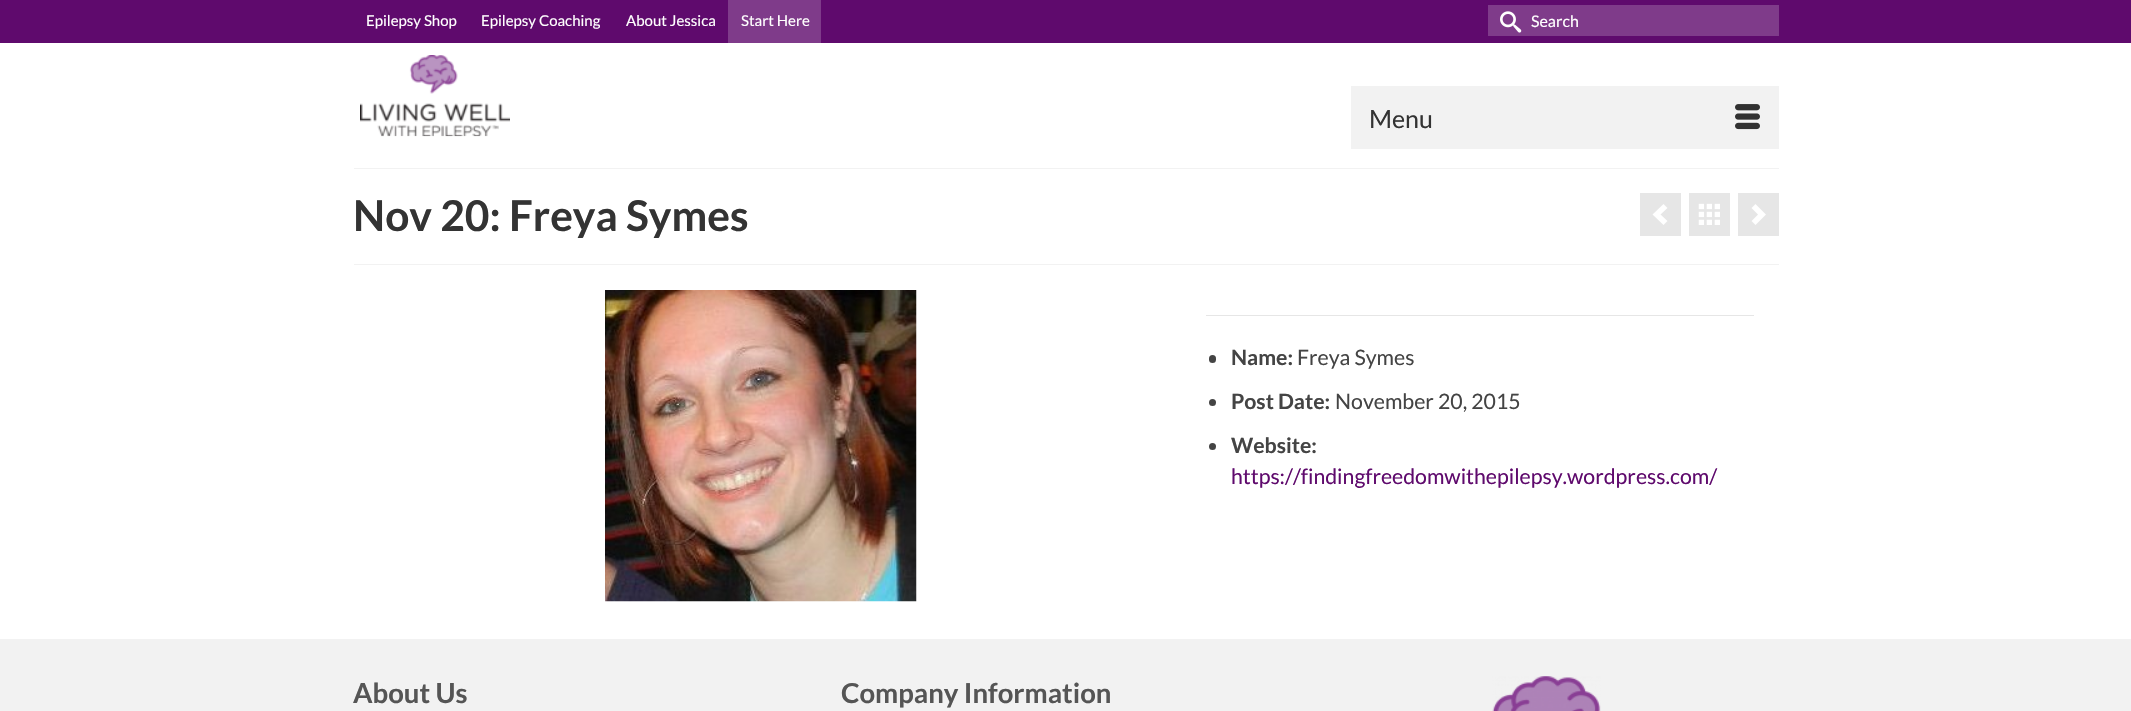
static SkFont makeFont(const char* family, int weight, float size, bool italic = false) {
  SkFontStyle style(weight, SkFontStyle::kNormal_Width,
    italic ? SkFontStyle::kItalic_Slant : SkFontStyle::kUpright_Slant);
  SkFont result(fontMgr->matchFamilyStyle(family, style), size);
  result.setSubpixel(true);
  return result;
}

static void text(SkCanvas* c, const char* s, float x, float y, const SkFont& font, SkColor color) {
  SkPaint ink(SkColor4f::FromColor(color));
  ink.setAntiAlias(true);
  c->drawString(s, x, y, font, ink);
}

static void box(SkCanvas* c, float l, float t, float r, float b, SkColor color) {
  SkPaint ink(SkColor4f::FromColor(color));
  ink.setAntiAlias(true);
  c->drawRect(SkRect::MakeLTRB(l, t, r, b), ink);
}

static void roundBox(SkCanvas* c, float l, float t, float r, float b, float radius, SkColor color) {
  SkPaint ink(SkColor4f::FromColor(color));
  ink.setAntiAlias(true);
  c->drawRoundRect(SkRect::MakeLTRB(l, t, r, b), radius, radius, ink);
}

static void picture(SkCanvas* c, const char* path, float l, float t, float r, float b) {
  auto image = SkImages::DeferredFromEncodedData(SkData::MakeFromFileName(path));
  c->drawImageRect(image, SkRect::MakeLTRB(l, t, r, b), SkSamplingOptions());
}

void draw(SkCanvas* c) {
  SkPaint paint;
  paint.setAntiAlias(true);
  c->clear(0xffffffff);
  box(c, 0, 0, 2131, 43, 0xff5f0a6d);
  SkFont face1 = makeFont("Lato", 400, 15);
  text(c, "Epilepsy Shop", 366, 26, face1, 0xffffffff);
  text(c, "Epilepsy Coaching", 481, 26, face1, 0xffffffff);
  text(c, "About Jessica", 626, 26, face1, 0xffffffff);
  box(c, 728, 0, 821, 43, 0xff7f3b8a);
  text(c, "Start Here", 741, 26, face1, 0xffffffff);
  box(c, 1488, 5, 1779, 36, 0xff7f3b8a);
  picture(c, "img_01.png", 1500, 11, 1522, 33);
  SkFont face2 = makeFont("Lato", 400, 16);
  text(c, "Search", 1531, 27, face2, 0xffffffff);
  picture(c, "img_02.png", 360, 55, 510, 137);
  box(c, 1351, 86, 1779, 149, 0xfff2f2f2);
  SkFont face3 = makeFont("Lato", 400, 25);
  text(c, "Menu", 1369, 128, face3, 0xff333333);
  picture(c, "img_03.png", 1735, 104, 1760, 130);
  box(c, 354, 168, 1779, 169, 0xfff2f2f2);
  box(c, 354, 264, 1779, 265, 0xfff2f2f2);
  SkFont face4 = makeFont("Lato", 700, 42.5f);
  text(c, "Nov 20: Freya Symes", 353, 231, face4, 0xff333333);
  box(c, 1640, 193, 1681, 236, 0xffe6e6e6);
  box(c, 1689, 193, 1730, 236, 0xffe6e6e6);
  box(c, 1738, 193, 1779, 236, 0xffe6e6e6);
  paint.setColor(0xffffffff);
  c->drawPath(SkPathBuilder().moveTo(1663.5f, 225).lineTo(1667.5f, 221).lineTo(1660.5f, 214.5f).lineTo(1667.5f, 208).lineTo(1663.5f, 204).lineTo(1652.5f, 214.5f).close().detach(), paint);
  picture(c, "img_04.png", 1698, 203, 1720, 225);
  c->drawPath(SkPathBuilder().moveTo(1755.5f, 204).lineTo(1751.5f, 208).lineTo(1758, 214.5f).lineTo(1751.5f, 221).lineTo(1755.5f, 225).lineTo(1766, 214.5f).close().detach(), paint);
  picture(c, "img_05.png", 605, 290, 917, 602);
  box(c, 1206, 315, 1754, 316, 0xffe6e6e6);
  roundBox(c, 1209, 355, 1216, 363, 3.5f, 0xff444444);
  SkFont face5 = makeFont("Lato", 700, 21.25f);
  text(c, "Name:", 1231, 365, face5, 0xff444444);
  SkFont face6 = makeFont("Lato", 400, 21.25f);
  text(c, "Freya Symes", 1297, 365, face6, 0xff444444);
  paint.setColor(0xff444444);
  c->drawCircle(1212.5f, 402.5f, 3.5f, paint);
  text(c, "Post Date:", 1231, 409, face5, 0xff444444);
  text(c, "November 20, 2015", 1335, 409, face6, 0xff444444);
  c->drawCircle(1212.5f, 446.5f, 3.5f, paint);
  text(c, "Website:", 1231, 453, face5, 0xff444444);
  text(c, "https://findingfreedomwithepilepsy.wordpress.com/", 1231, 484, face6, 0xff5f0a6d);
  box(c, 0, 639, 2131, 711, 0xfff2f2f2);
  SkFont face7 = makeFont("Lato", 700, 27.5f);
  text(c, "About Us", 353, 703, face7, 0xff555555);
  text(c, "Company Information", 841, 703, face7, 0xff555555);
  picture(c, "img_06.png", 1492, 676, 1601, 711);
}
